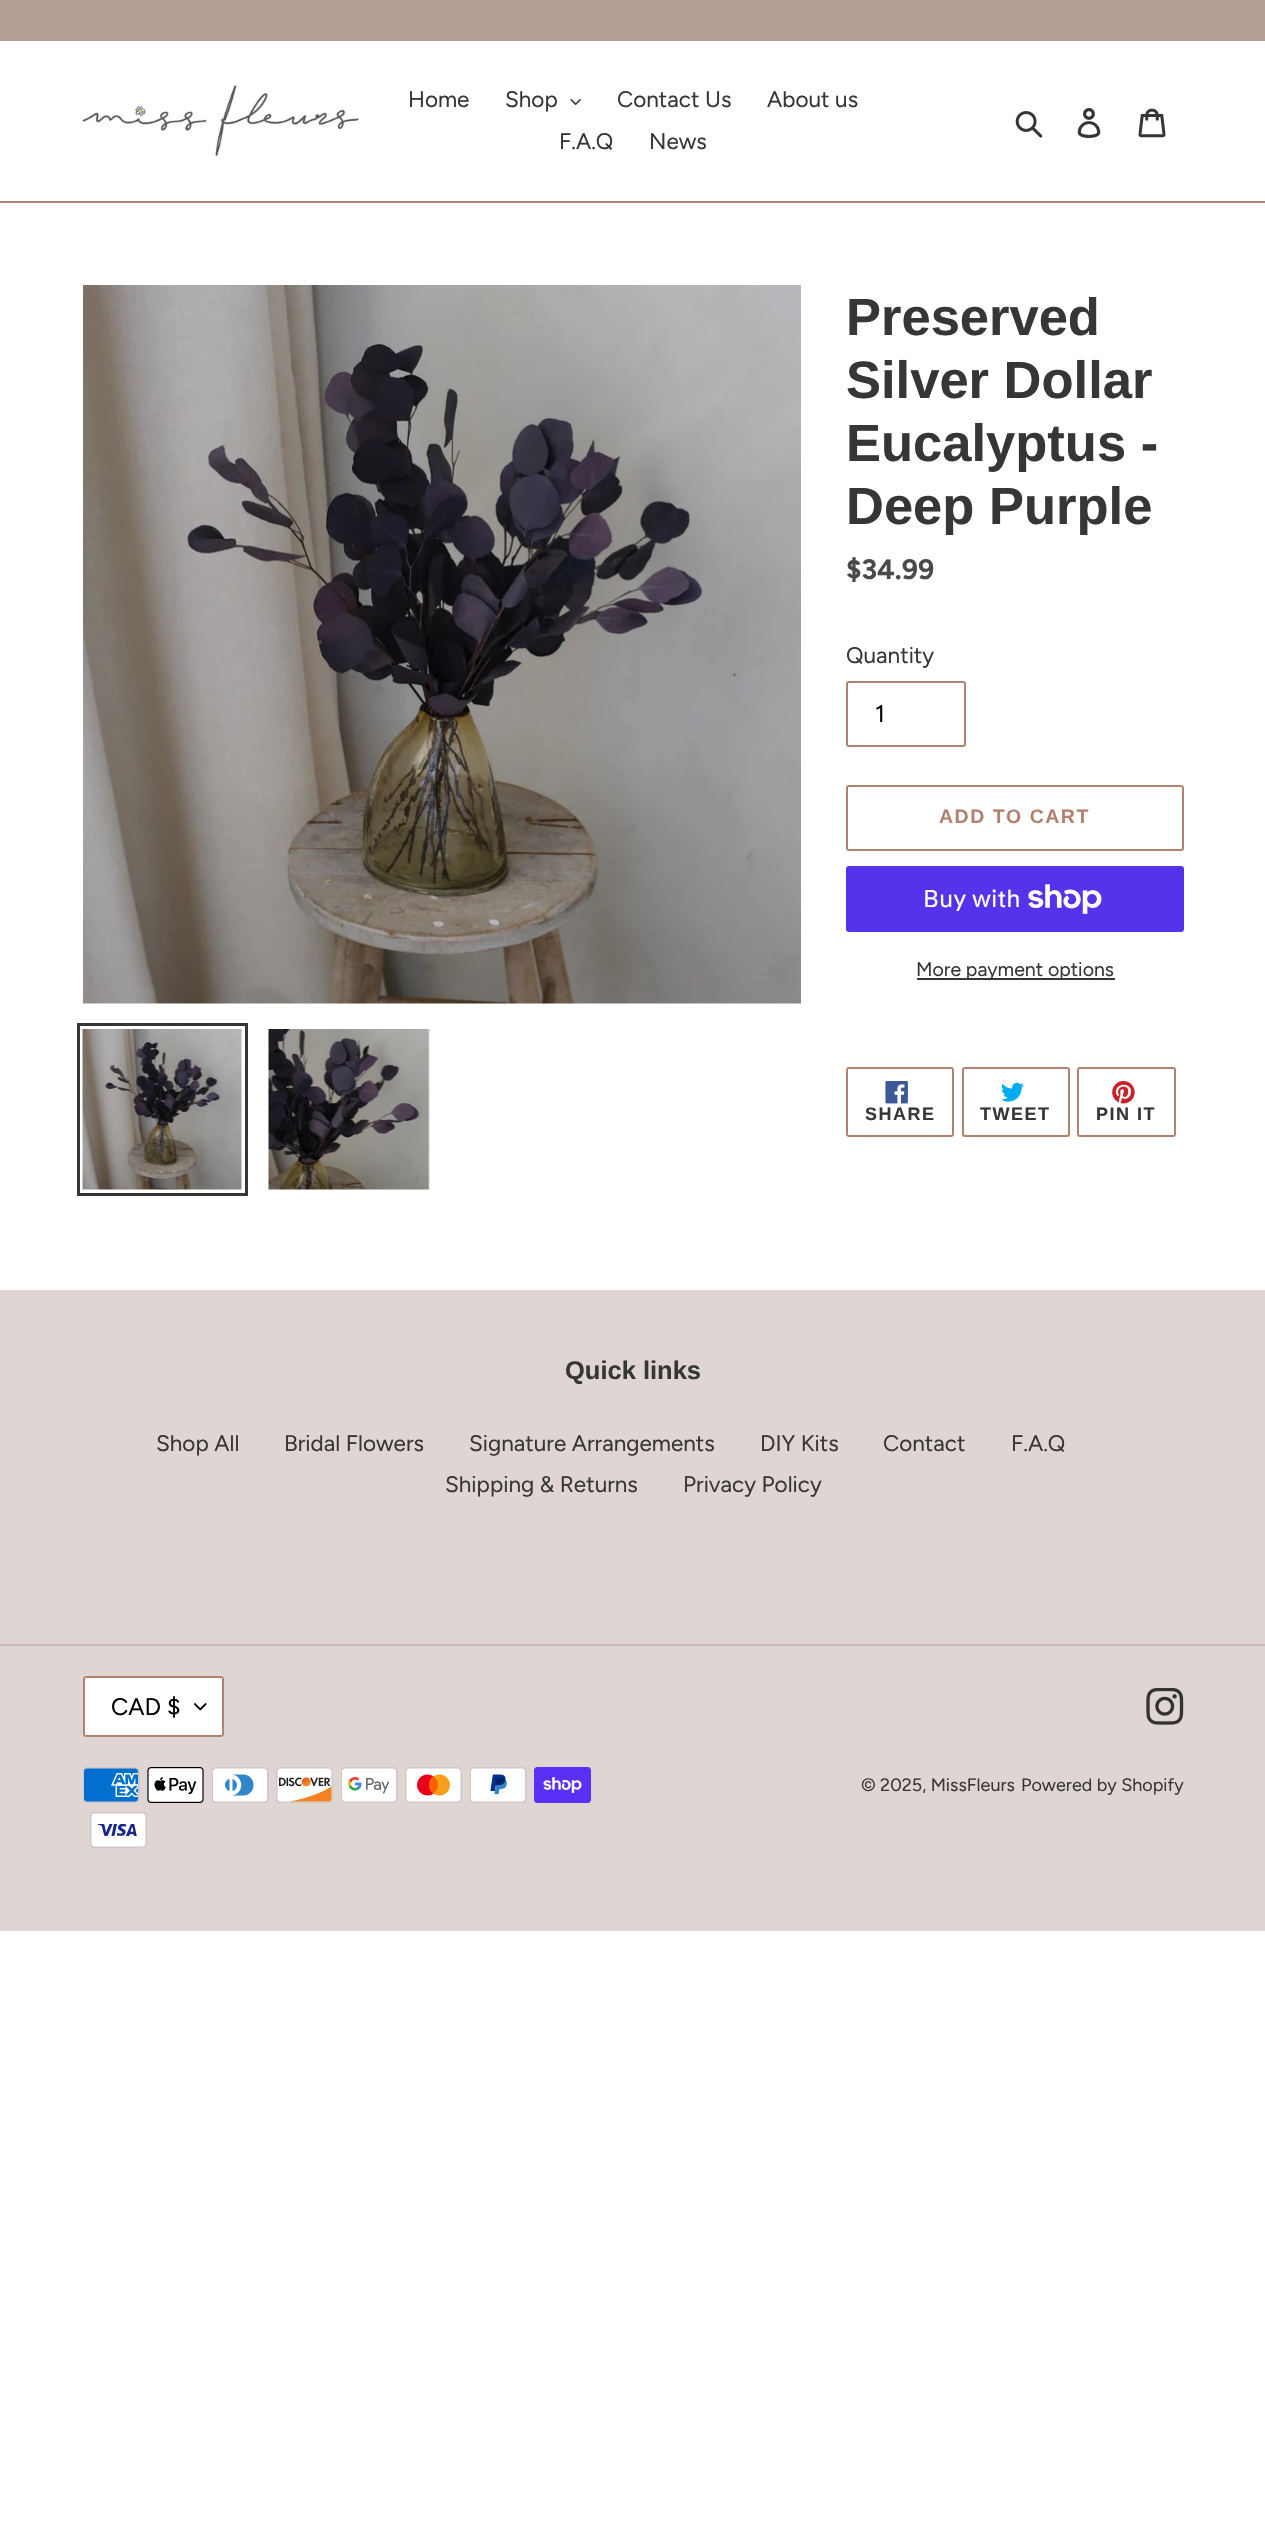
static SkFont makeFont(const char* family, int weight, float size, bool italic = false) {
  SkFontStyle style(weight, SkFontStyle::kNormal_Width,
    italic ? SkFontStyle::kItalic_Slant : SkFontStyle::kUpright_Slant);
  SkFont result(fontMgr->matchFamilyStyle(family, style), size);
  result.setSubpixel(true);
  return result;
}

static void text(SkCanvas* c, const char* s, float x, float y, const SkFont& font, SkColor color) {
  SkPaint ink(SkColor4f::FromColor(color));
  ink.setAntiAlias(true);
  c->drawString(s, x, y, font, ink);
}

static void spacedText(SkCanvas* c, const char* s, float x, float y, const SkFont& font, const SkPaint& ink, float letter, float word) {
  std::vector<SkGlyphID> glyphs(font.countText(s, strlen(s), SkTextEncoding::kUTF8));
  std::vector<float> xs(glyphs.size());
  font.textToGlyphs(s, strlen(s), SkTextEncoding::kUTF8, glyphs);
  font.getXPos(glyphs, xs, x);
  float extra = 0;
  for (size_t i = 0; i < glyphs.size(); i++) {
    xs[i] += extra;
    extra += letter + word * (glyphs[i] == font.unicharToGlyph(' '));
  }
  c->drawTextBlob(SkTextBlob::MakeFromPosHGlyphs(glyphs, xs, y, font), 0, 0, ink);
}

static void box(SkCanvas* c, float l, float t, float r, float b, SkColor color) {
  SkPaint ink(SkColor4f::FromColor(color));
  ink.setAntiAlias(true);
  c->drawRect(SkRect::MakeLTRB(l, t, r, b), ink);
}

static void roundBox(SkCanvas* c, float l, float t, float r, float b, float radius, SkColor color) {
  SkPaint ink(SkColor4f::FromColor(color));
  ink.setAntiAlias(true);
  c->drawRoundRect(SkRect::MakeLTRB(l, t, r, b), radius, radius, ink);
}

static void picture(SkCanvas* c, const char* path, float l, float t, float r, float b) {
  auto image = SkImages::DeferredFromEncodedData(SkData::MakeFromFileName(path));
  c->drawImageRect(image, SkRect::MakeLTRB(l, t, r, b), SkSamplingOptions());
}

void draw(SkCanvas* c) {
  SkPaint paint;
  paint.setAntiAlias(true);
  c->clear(0xffffffff);
  box(c, 0, 0, 1265, 41, 0xffb69f96);
  box(c, 0, 201, 1265, 203, 0xffb18270);
  picture(c, "img_01.png", 82, 85, 359, 156);
  SkFont face1 = makeFont("Figtree", 400, 22.5f);
  text(c, "Home", 408, 107, face1, 0xff373636);
  text(c, "Shop", 505, 107, face1, 0xff373636);
  picture(c, "img_02.png", 570, 99, 581, 105);
  text(c, "Contact Us", 617, 107, face1, 0xff373636);
  text(c, "About us", 767, 107, face1, 0xff373636);
  text(c, "F.A.Q", 559, 149, face1, 0xff373636);
  text(c, "News", 649, 149, face1, 0xff373636);
  picture(c, "img_03.png", 1015, 111, 1043, 138);
  picture(c, "img_04.png", 1077, 108, 1101, 138);
  picture(c, "img_05.png", 1138, 108, 1166, 138);
  picture(c, "img_06.png", 83, 285, 801, 1004);
  paint.setStyle(SkPaint::kStroke_Style);
  paint.setStrokeWidth(3);
  paint.setColor(0xff373636);
  c->drawRect(SkRect::MakeLTRB(78.5f, 1024.5f, 246.5f, 1194.5f), paint);
  picture(c, "img_07.png", 82, 1029, 242, 1190);
  picture(c, "img_08.png", 268, 1029, 430, 1190);
  SkFont face2 = makeFont("Liberation Sans", 700, 52.5f);
  text(c, "Preserved", 846, 335, face2, 0xff373636);
  text(c, "Silver Dollar", 846, 398, face2, 0xff373636);
  text(c, "Eucalyptus -", 846, 461, face2, 0xff373636);
  text(c, "Deep Purple", 846, 524, face2, 0xff373636);
  SkFont face3 = makeFont("Figtree", 700, 28);
  text(c, "$34.99", 846, 579, face3, 0xff4b4a4a);
  text(c, "Quantity", 846, 663, face1, 0xff373636);
  paint.setStrokeWidth(2);
  paint.setColor(0xffb18270);
  c->drawRoundRect(SkRect::MakeLTRB(847, 682, 965, 746), 2, 2, paint);
  SkFont face4 = makeFont("Figtree", 400, 24);
  text(c, "1", 875, 722, face4, 0xff000000);
  c->drawRoundRect(SkRect::MakeLTRB(847, 786, 1183, 850), 2, 2, paint);
  SkFont face5 = makeFont("Liberation Sans", 700, 19.5f);
  paint.setStyle(SkPaint::kFill_Style);
  spacedText(c, "ADD TO CART", 939, 823, face5, paint, 1.5f, 0);
  roundBox(c, 846, 866, 1184, 932, 3, 0xff5433eb);
  SkFont face6 = makeFont("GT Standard", 400, 24);
  text(c, "Buy with", 923, 907, face6, 0xffffffff);
  picture(c, "img_09.png", 1028, 884, 1102, 914);
  box(c, 917, 978, 1115, 980, 0xff373636);
  SkFont face7 = makeFont("Figtree", 400, 19.5f);
  text(c, "More payment options", 916, 976, face7, 0xff373636);
  paint.setStyle(SkPaint::kStroke_Style);
  c->drawRoundRect(SkRect::MakeLTRB(847, 1068, 953, 1136), 2, 2, paint);
  picture(c, "img_10.png", 885, 1081, 908, 1104);
  SkFont face8 = makeFont("Liberation Sans", 700, 18);
  paint.setStyle(SkPaint::kFill_Style);
  paint.setColor(0xff373636);
  spacedText(c, "SHARE", 865, 1120, face8, paint, 1.5f, 0);
  paint.setStyle(SkPaint::kStroke_Style);
  paint.setColor(0xffb18270);
  c->drawRoundRect(SkRect::MakeLTRB(963, 1068, 1069, 1136), 2, 2, paint);
  picture(c, "img_11.png", 1001, 1082, 1024, 1102);
  paint.setStyle(SkPaint::kFill_Style);
  paint.setColor(0xff373636);
  spacedText(c, "TWEET", 980, 1120, face8, paint, 1.5f, 0);
  paint.setStyle(SkPaint::kStroke_Style);
  paint.setColor(0xffb18270);
  c->drawRoundRect(SkRect::MakeLTRB(1078, 1068, 1175, 1136), 2, 2, paint);
  picture(c, "img_12.png", 1112, 1081, 1135, 1104);
  paint.setStyle(SkPaint::kFill_Style);
  paint.setColor(0xff373636);
  spacedText(c, "PIN IT", 1096, 1120, face8, paint, 1.5f, 0);
  box(c, 0, 1290, 1265, 1931, 0xffdfd6d3);
  SkFont face9 = makeFont("Liberation Sans", 700, 25.5f);
  text(c, "Quick links", 565, 1379, face9, 0xff373636);
  text(c, "Shop All", 156, 1451, face1, 0xff373636);
  text(c, "Bridal Flowers", 284, 1451, face1, 0xff373636);
  text(c, "Signature Arrangements", 469, 1451, face1, 0xff373636);
  text(c, "DIY Kits", 760, 1451, face1, 0xff373636);
  text(c, "Contact", 883, 1451, face1, 0xff373636);
  text(c, "F.A.Q", 1011, 1451, face1, 0xff373636);
  text(c, "Shipping & Returns", 445, 1492, face1, 0xff373636);
  text(c, "Privacy Policy", 683, 1492, face1, 0xff373636);
  box(c, 0, 1644, 1265, 1646, 0xffcabab5);
  roundBox(c, 83, 1676, 224, 1737, 3, 0xffffffff);
  picture(c, "img_13.png", 194, 1703, 207, 1711);
  paint.setStyle(SkPaint::kStroke_Style);
  paint.setColor(0xffb18270);
  c->drawRoundRect(SkRect::MakeLTRB(84, 1677, 223, 1736), 2, 2, paint);
  text(c, "CAD $", 111, 1715, face4, 0xff000000);
  picture(c, "img_14.png", 1146, 1688, 1184, 1725);
  picture(c, "img_15.png", 83, 1767, 140, 1803);
  picture(c, "img_16.png", 147, 1767, 204, 1803);
  picture(c, "img_17.png", 212, 1767, 269, 1803);
  picture(c, "img_18.png", 276, 1767, 333, 1803);
  picture(c, "img_19.png", 341, 1767, 398, 1803);
  picture(c, "img_20.png", 405, 1767, 462, 1803);
  picture(c, "img_21.png", 470, 1767, 527, 1803);
  picture(c, "img_22.png", 534, 1767, 591, 1803);
  picture(c, "img_23.png", 90, 1812, 147, 1848);
  SkFont face10 = makeFont("Figtree", 400, 18);
  text(c, "© 2025, MissFleurs", 861, 1791, face10, 0xff373636);
  text(c, "Powered by Shopify", 1021, 1791, face10, 0xff373636);
}
